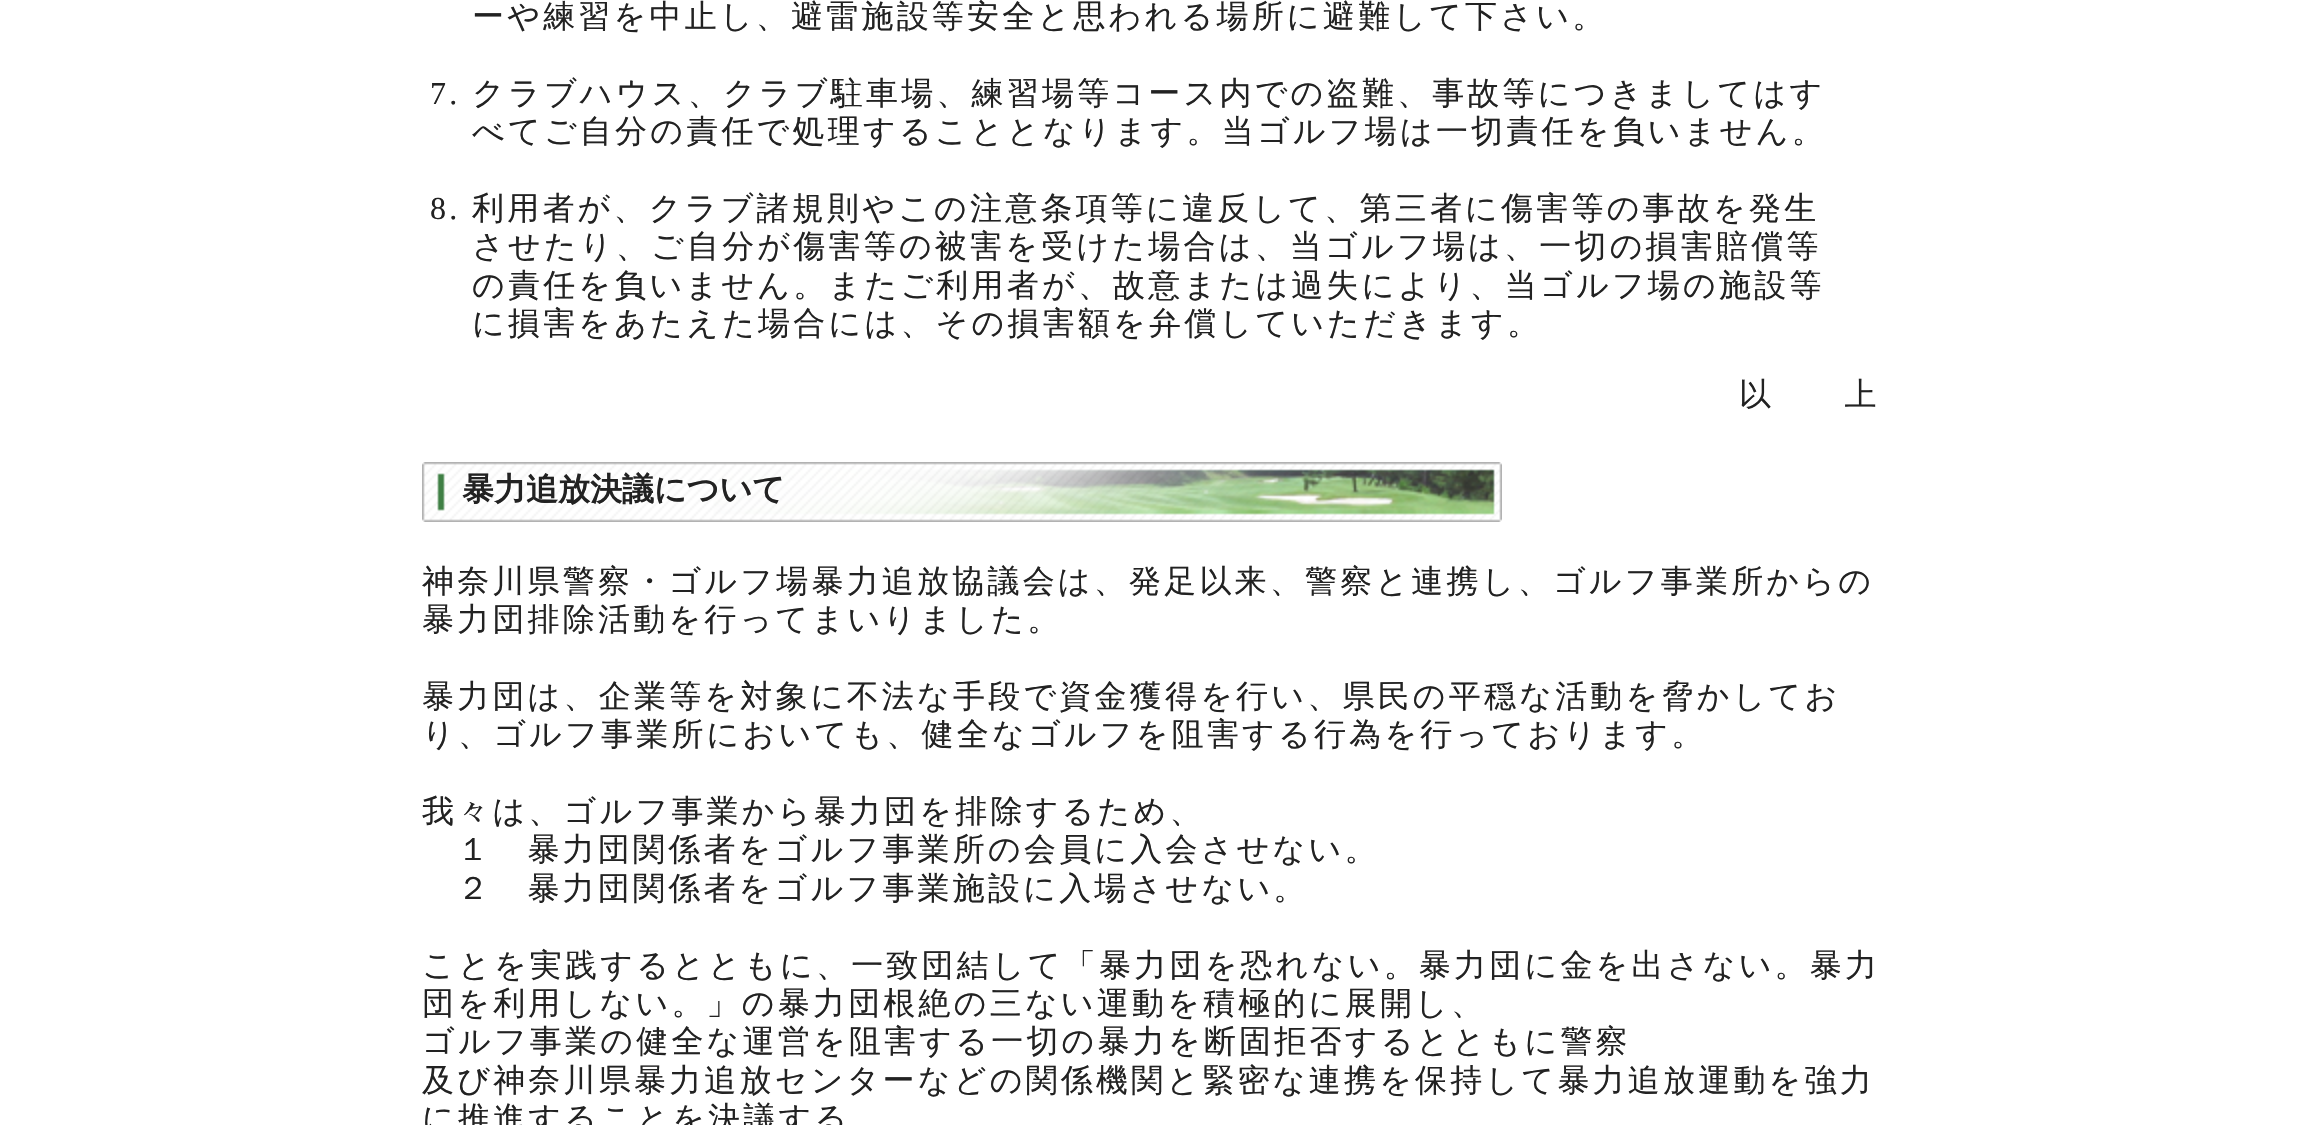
static SkFont makeFont(const char* family, int weight, float size, bool italic = false) {
  SkFontStyle style(weight, SkFontStyle::kNormal_Width,
    italic ? SkFontStyle::kItalic_Slant : SkFontStyle::kUpright_Slant);
  SkFont result(fontMgr->matchFamilyStyle(family, style), size);
  result.setSubpixel(true);
  return result;
}

static void text(SkCanvas* c, const char* s, float x, float y, const SkFont& font, SkColor color) {
  SkPaint ink(SkColor4f::FromColor(color));
  ink.setAntiAlias(true);
  c->drawString(s, x, y, font, ink);
}

static void spacedText(SkCanvas* c, const char* s, float x, float y, const SkFont& font, const SkPaint& ink, float letter, float word) {
  std::vector<SkGlyphID> glyphs(font.countText(s, strlen(s), SkTextEncoding::kUTF8));
  std::vector<float> xs(glyphs.size());
  font.textToGlyphs(s, strlen(s), SkTextEncoding::kUTF8, glyphs);
  font.getXPos(glyphs, xs, x);
  float extra = 0;
  for (size_t i = 0; i < glyphs.size(); i++) {
    xs[i] += extra;
    extra += letter + word * (glyphs[i] == font.unicharToGlyph(' '));
  }
  c->drawTextBlob(SkTextBlob::MakeFromPosHGlyphs(glyphs, xs, y, font), 0, 0, ink);
}

static void picture(SkCanvas* c, const char* path, float l, float t, float r, float b) {
  auto image = SkImages::DeferredFromEncodedData(SkData::MakeFromFileName(path));
  c->drawImageRect(image, SkRect::MakeLTRB(l, t, r, b), SkSamplingOptions());
}

void draw(SkCanvas* c) {
  SkPaint paint;
  paint.setAntiAlias(true);
  c->clear(0xffffffff);
  SkFont face1 = makeFont("WenQuanYi Zen Hei", 500, 32);
  paint.setColor(0xff222222);
  spacedText(c, "ーや練習を中止し、避雷施設等安全と思われる場所に避難して下さい。", 472, 27, face1, paint, 3.2f, 0);
  SkFont face2 = makeFont("Liberation Serif", 400, 32);
  spacedText(c, "7.", 430, 104, face2, paint, 3.2f, 0);
  spacedText(c, "クラブハウス、クラブ駐車場、練習場等コース内での盗難、事故等につきましてはす", 472, 104, face1, paint, 3.2f, 0);
  spacedText(c, "べてご自分の責任で処理することとなります。当ゴルフ場は一切責任を負いません。", 472, 142, face1, paint, 3.2f, 0);
  spacedText(c, "8.", 430, 219, face2, paint, 3.2f, 0);
  spacedText(c, "利用者が、クラブ諸規則やこの注意条項等に違反して、第三者に傷害等の事故を発生", 472, 219, face1, paint, 3.2f, 0);
  spacedText(c, "させたり、ご自分が傷害等の被害を受けた場合は、当ゴルフ場は、一切の損害賠償等", 472, 257, face1, paint, 3.2f, 0);
  spacedText(c, "の責任を負いません。またご利用者が、故意または過失により、当ゴルフ場の施設等", 472, 296, face1, paint, 3.2f, 0);
  spacedText(c, "に損害をあたえた場合には、その損害額を弁償していただきます。", 472, 334, face1, paint, 3.2f, 0);
  spacedText(c, "以　　上", 1739, 405, face1, paint, 3.2f, 0);
  picture(c, "img_01.png", 422, 462, 1502, 522);
  SkFont face3 = makeFont("WenQuanYi Zen Hei", 700, 32);
  text(c, "暴力追放決議について", 462, 500, face3, 0xff222222);
  spacedText(c, "神奈川県警察・ゴルフ場暴力追放協議会は、発足以来、警察と連携し、ゴルフ事業所からの", 422, 592, face1, paint, 3.2f, 0);
  spacedText(c, "暴力団排除活動を行ってまいりました。", 422, 630, face1, paint, 3.2f, 0);
  spacedText(c, "暴力団は、企業等を対象に不法な手段で資金獲得を行い、県民の平穏な活動を脅かしてお", 422, 707, face1, paint, 3.2f, 0);
  spacedText(c, "り、ゴルフ事業所においても、健全なゴルフを阻害する行為を行っております。", 422, 745, face1, paint, 3.2f, 0);
  spacedText(c, "我々は、ゴルフ事業から暴力団を排除するため、", 422, 822, face1, paint, 3.2f, 0);
  spacedText(c, "１　暴力団関係者をゴルフ事業所の会員に入会させない。", 457, 860, face1, paint, 3.2f, 0);
  spacedText(c, "２　暴力団関係者をゴルフ事業施設に入場させない。", 457, 899, face1, paint, 3.2f, 0);
  spacedText(c, "ことを実践するとともに、一致団結して「暴力団を恐れない。暴力団に金を出さない。暴力", 422, 976, face1, paint, 3.2f, 0);
  spacedText(c, "団を利用しない。」の暴力団根絶の三ない運動を積極的に展開し、", 422, 1014, face1, paint, 3.2f, 0);
  spacedText(c, "ゴルフ事業の健全な運営を阻害する一切の暴力を断固拒否するとともに警察", 422, 1052, face1, paint, 3.2f, 0);
  spacedText(c, "及び神奈川県暴力追放センターなどの関係機関と緊密な連携を保持して暴力追放運動を強力", 422, 1091, face1, paint, 3.2f, 0);
  spacedText(c, "に推進することを決議する", 422, 1129, face1, paint, 3.2f, 0);
}
